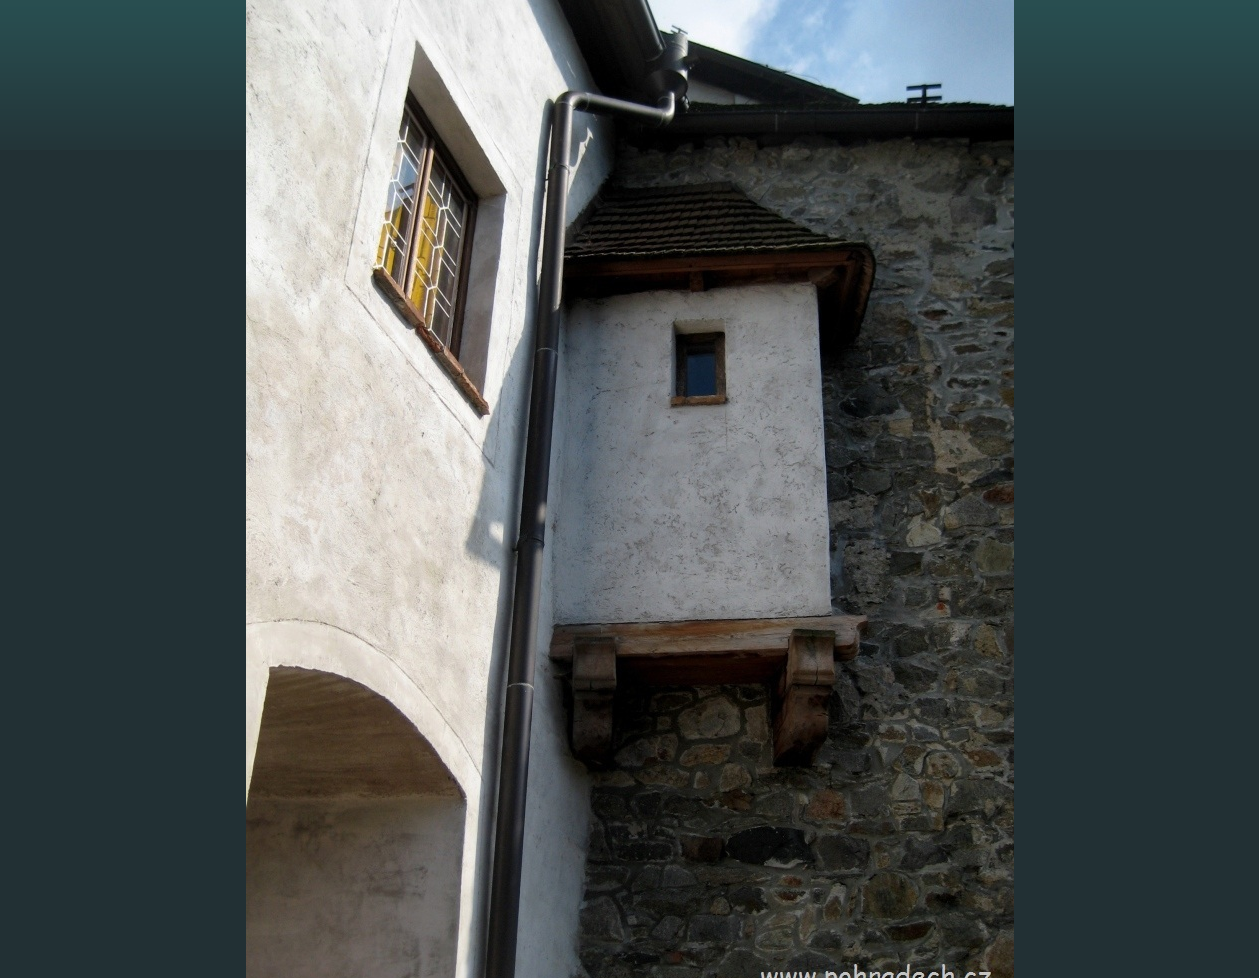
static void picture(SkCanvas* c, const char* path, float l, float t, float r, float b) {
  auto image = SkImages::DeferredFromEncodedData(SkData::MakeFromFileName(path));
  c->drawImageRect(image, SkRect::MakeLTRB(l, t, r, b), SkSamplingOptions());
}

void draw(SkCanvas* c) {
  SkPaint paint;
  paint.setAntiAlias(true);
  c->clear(0xff223034);
  picture(c, "img_01.png", 0, 0, 1259, 150);
  picture(c, "img_02.png", 246, 0, 1014, 978);
}
